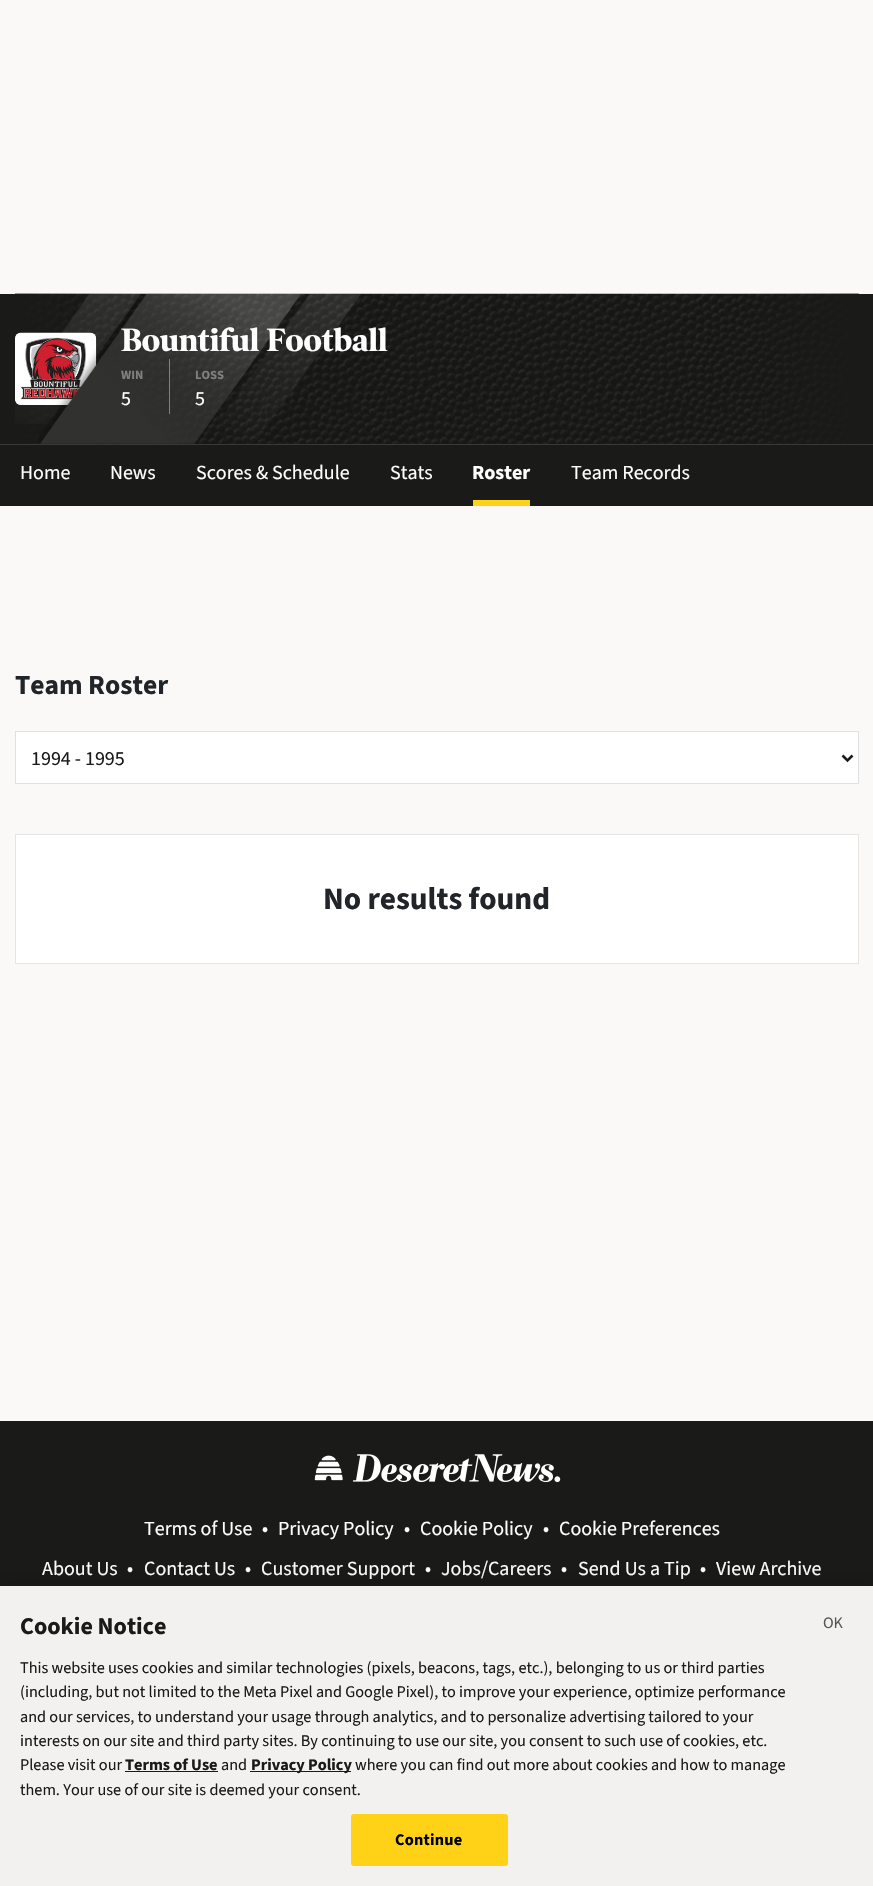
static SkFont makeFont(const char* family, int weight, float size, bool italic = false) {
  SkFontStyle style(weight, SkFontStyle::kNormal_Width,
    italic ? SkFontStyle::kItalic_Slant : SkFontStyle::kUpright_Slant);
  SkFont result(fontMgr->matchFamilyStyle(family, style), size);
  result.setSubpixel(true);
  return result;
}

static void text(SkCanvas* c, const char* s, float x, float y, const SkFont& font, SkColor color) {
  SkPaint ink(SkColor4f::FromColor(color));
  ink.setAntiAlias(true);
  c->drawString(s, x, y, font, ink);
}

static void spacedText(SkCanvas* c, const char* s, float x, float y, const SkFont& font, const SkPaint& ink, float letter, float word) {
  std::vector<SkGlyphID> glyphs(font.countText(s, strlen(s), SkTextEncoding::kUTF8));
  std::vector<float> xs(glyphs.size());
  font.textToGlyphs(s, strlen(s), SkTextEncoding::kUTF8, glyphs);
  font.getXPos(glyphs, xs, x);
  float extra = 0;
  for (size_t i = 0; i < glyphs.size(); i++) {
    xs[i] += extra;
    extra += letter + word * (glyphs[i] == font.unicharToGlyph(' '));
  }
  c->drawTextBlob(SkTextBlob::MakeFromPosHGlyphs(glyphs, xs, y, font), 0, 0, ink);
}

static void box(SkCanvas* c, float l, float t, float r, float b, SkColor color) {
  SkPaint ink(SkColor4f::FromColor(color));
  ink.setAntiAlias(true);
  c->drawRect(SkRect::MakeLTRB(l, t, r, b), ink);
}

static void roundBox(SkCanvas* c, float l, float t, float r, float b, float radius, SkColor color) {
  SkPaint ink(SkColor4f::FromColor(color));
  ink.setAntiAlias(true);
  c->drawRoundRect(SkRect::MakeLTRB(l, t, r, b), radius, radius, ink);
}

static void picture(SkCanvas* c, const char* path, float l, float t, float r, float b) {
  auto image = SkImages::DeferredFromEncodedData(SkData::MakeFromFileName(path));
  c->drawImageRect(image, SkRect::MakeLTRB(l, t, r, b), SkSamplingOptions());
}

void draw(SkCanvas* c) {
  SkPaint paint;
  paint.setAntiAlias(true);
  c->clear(0xfffaf9f7);
  box(c, 0, 294, 873, 444, 0xff1a1a19);
  picture(c, "img_01.png", 15, 293, 859, 444);
  picture(c, "img_03.png", 15, 294, 141, 424);
  roundBox(c, 15, 333, 96, 405, 6, 0xffffffff);
  picture(c, "img_04.png", 15, 332, 97, 405);
  picture(c, "img_02.png", 39, 293, 361, 444);
  SkFont face1 = makeFont("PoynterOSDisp", 700, 32.5f);
  text(c, "Bountiful Football", 121, 351, face1, 0xffffffff);
  box(c, 169, 359, 170, 414, 0xff808080);
  SkFont face2 = makeFont("Source Sans 3", 700, 12.5f);
  text(c, "WIN", 121, 379, face2, 0xff808080);
  SkFont face3 = makeFont("Source Sans 3", 400, 20);
  text(c, "5", 121, 405, face3, 0xffffffff);
  text(c, "LOSS", 195, 379, face2, 0xff808080);
  text(c, "5", 195, 405, face3, 0xffffffff);
  box(c, 0, 445, 873, 506, 0xff1a1a19);
  box(c, 0, 444, 873, 445, 0xff393939);
  text(c, "Home", 20, 479, face3, 0xffffffff);
  text(c, "News", 110, 479, face3, 0xffffffff);
  text(c, "Scores & Schedule", 196, 479, face3, 0xffffffff);
  text(c, "Stats", 390, 479, face3, 0xffffffff);
  box(c, 473, 500, 530, 506, 0xffffd218);
  SkFont face4 = makeFont("Source Sans 3", 700, 20);
  text(c, "Roster", 472, 479, face4, 0xffffffff);
  text(c, "Team Records", 571, 479, face3, 0xffffffff);
  SkFont face5 = makeFont("Source Sans 3", 700, 27.5f);
  text(c, "Team Roster", 15, 694, face5, 0xff212529);
  paint.setColor(0xffffffff);
  c->drawRect(SkRect::MakeLTRB(15.5f, 731.5f, 858.5f, 783.5f), paint);
  paint.setStyle(SkPaint::kStroke_Style);
  paint.setStrokeWidth(1);
  paint.setColor(0xffdee0e3);
  c->drawRect(SkRect::MakeLTRB(15.5f, 731.5f, 858.5f, 783.5f), paint);
  paint.setStrokeWidth(2.5f);
  paint.setColor(0xff1a1a19);
  c->drawPath(SkPathBuilder().moveTo(842.5f, 755.5f).lineTo(847.5f, 760.5f).lineTo(852.5f, 755.5f).detach(), paint);
  text(c, "1994 - 1995", 31, 765, face3, 0xff1a1a19);
  paint.setStyle(SkPaint::kFill_Style);
  paint.setColor(0xffffffff);
  c->drawRect(SkRect::MakeLTRB(15.5f, 834.5f, 858.5f, 963.5f), paint);
  paint.setStyle(SkPaint::kStroke_Style);
  paint.setStrokeWidth(1);
  paint.setColor(0xffe6e5e3);
  c->drawRect(SkRect::MakeLTRB(15.5f, 834.5f, 858.5f, 963.5f), paint);
  SkFont face6 = makeFont("Source Sans 3", 700, 31.25f);
  text(c, "No results found", 323, 909, face6, 0xff212529);
  box(c, 0, 1421, 873, 1586, 0xff1a1a19);
  picture(c, "img_05.png", 314, 1454, 561, 1483);
  text(c, "Terms of Use", 144, 1535, face3, 0xffffffff);
  text(c, "•", 262, 1535, face3, 0xffffffff);
  text(c, "Privacy Policy", 278, 1535, face3, 0xffffffff);
  text(c, "•", 404, 1535, face3, 0xffffffff);
  text(c, "Cookie Policy", 420, 1535, face3, 0xffffffff);
  text(c, "•", 543, 1535, face3, 0xffffffff);
  text(c, "Cookie Preferences", 559, 1535, face3, 0xffffffff);
  text(c, "About Us", 42, 1575, face3, 0xffffffff);
  text(c, "•", 127, 1575, face3, 0xffffffff);
  text(c, "Contact Us", 144, 1575, face3, 0xffffffff);
  text(c, "•", 245, 1575, face3, 0xffffffff);
  text(c, "Customer Support", 261, 1575, face3, 0xffffffff);
  text(c, "•", 425, 1575, face3, 0xffffffff);
  text(c, "Jobs/Careers", 441, 1575, face3, 0xffffffff);
  text(c, "•", 561, 1575, face3, 0xffffffff);
  text(c, "Send Us a Tip", 578, 1575, face3, 0xffffffff);
  text(c, "•", 700, 1575, face3, 0xffffffff);
  text(c, "View Archive", 716, 1575, face3, 0xffffffff);
  paint.setStyle(SkPaint::kFill_Style);
  paint.setColor(0x33000000);
  paint.setMaskFilter(SkMaskFilter::MakeBlur(kNormal_SkBlurStyle, 11));
  c->drawRect(SkRect::MakeLTRB(0, 1586, 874, 1886), paint);
  paint.setMaskFilter(nullptr);
  box(c, 0, 1586, 873, 1886, 0xfff3f1f0);
  SkFont face7 = makeFont("Source Sans 3", 700, 24);
  text(c, "Cookie Notice", 20, 1634, face7, 0xff1a1a19);
  SkFont face8 = makeFont("Source Sans 3", 400, 16.25f);
  text(c, "This website uses cookies and similar technologies (pixels, beacons, tags, etc.), belonging to us or third parties", 20, 1673, face8, 0xff1a1a19);
  text(c, "(including, but not limited to the Meta Pixel and Google Pixel), to improve your experience, optimize performance", 20, 1697, face8, 0xff1a1a19);
  text(c, "and our services, to understand your usage through analytics, and to personalize advertising tailored to your", 20, 1722, face8, 0xff1a1a19);
  text(c, "interests on our site and third party sites. By continuing to use our site, you consent to such use of cookies, etc.", 20, 1746, face8, 0xff1a1a19);
  text(c, "Please visit our", 20, 1770, face8, 0xff1a1a19);
  SkFont face9 = makeFont("Source Sans 3", 700, 16.25f);
  text(c, "Terms of Use", 125, 1770, face9, 0xff1a1a19);
  box(c, 125, 1771, 218, 1772, 0xff1a1a19);
  text(c, "and", 221, 1770, face8, 0xff1a1a19);
  box(c, 250, 1771, 351, 1772, 0xff1a1a19);
  text(c, "Privacy Policy", 251, 1770, face9, 0xff1a1a19);
  text(c, "where you can find out more about cookies and how to manage", 355, 1770, face8, 0xff1a1a19);
  text(c, "them. Your use of our site is deemed your consent.", 20, 1795, face8, 0xff1a1a19);
  paint.setColor(0xffffd217);
  c->drawRoundRect(SkRect::MakeLTRB(351.5f, 1814.5f, 507.5f, 1865.5f), 2, 2, paint);
  paint.setStyle(SkPaint::kStroke_Style);
  c->drawRoundRect(SkRect::MakeLTRB(351.5f, 1814.5f, 507.5f, 1865.5f), 2, 2, paint);
  paint.setStyle(SkPaint::kFill_Style);
  paint.setColor(0xff000000);
  spacedText(c, "Continue", 395, 1845, face9, paint, 0.25f, 0);
  SkFont face10 = makeFont("Source Sans 3", 400, 16);
  text(c, "OK", 823, 1628, face10, 0xff555555);
}
